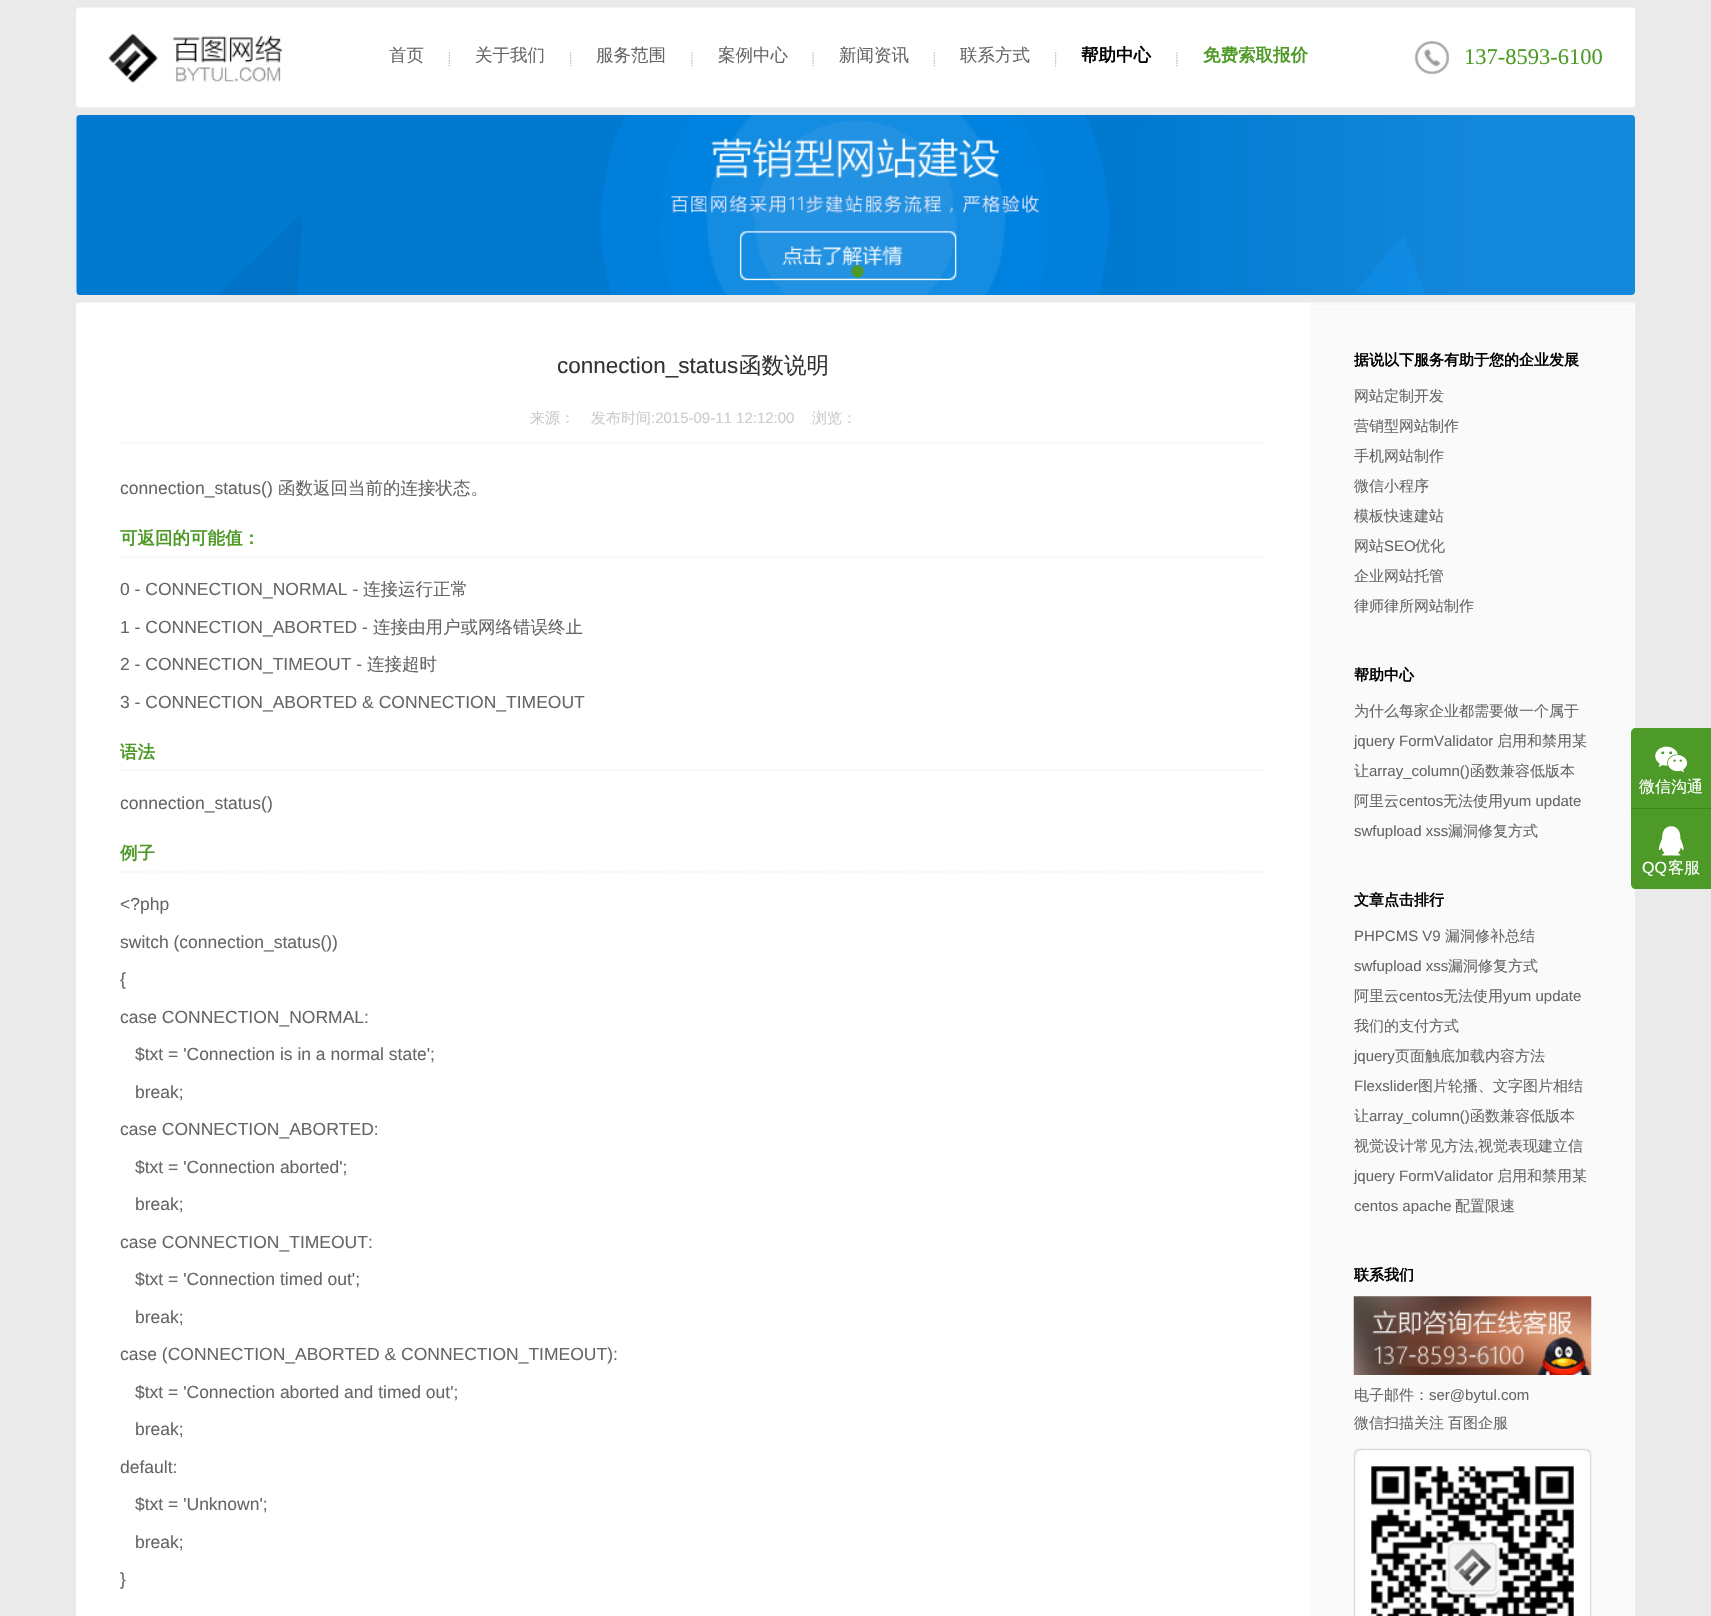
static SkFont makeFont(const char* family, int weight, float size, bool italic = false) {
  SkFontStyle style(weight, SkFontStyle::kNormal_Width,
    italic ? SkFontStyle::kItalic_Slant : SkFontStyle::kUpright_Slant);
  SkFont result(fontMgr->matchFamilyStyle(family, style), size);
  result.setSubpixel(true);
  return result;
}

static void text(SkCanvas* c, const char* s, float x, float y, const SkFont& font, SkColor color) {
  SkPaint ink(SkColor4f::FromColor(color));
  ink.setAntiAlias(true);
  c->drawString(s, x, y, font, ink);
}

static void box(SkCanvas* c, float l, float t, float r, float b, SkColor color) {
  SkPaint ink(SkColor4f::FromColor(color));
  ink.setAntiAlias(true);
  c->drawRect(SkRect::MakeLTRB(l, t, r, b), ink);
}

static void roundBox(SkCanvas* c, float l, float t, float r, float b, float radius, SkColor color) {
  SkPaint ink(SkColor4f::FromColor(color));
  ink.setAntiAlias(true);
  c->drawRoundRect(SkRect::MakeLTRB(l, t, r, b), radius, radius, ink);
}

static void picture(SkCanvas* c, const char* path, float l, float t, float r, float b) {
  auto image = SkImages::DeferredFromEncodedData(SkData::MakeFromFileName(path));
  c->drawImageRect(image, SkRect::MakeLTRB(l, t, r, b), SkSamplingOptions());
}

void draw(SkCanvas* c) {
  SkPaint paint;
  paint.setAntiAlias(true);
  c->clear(0xffeaeaea);
  picture(c, "img_01.png", 76, 7, 1635, 11);
  box(c, 76, 11, 1635, 104, 0xffffffff);
  picture(c, "img_02.png", 108, 33, 283, 83);
  picture(c, "img_03.png", 448, 52, 450, 67);
  SkFont face1 = makeFont("WenQuanYi Zen Hei", 500, 17.5f);
  text(c, "首页", 389, 61, face1, 0xff666666);
  picture(c, "img_04.png", 570, 52, 572, 67);
  text(c, "关于我们", 475, 61, face1, 0xff666666);
  picture(c, "img_05.png", 691, 52, 693, 67);
  text(c, "服务范围", 596, 61, face1, 0xff666666);
  picture(c, "img_06.png", 812, 52, 814, 67);
  text(c, "案例中心", 718, 61, face1, 0xff666666);
  picture(c, "img_03.png", 933, 52, 935, 67);
  text(c, "新闻资讯", 839, 61, face1, 0xff666666);
  picture(c, "img_04.png", 1055, 52, 1057, 67);
  text(c, "联系方式", 960, 61, face1, 0xff666666);
  picture(c, "img_05.png", 1176, 52, 1178, 67);
  SkFont face2 = makeFont("WenQuanYi Zen Hei", 700, 17.5f);
  text(c, "帮助中心", 1081, 61, face2, 0xff000000);
  text(c, "免费索取报价", 1203, 61, face2, 0xff4d9a26);
  picture(c, "img_07.png", 1414, 41, 1449, 74);
  SkFont face3 = makeFont("Liberation Serif", 400, 22.5f);
  text(c, "137-8593-6100", 1464, 64, face3, 0xff4d9a26);
  picture(c, "img_08.png", 76, 104, 1635, 108);
  roundBox(c, 76, 115, 1635, 295, 4, 0xffffffff);
  picture(c, "img_09.png", 76, 115, 1635, 295);
  picture(c, "img_10.png", 851, 264, 864, 278);
  picture(c, "img_11.png", 76, 302, 1635, 306);
  box(c, 76, 306, 1635, 1616, 0xffffffff);
  box(c, 1310, 307, 1635, 1616, 0xfffafafa);
  SkFont face4 = makeFont("Liberation Sans", 400, 22.5f);
  text(c, "connection_status", 557, 373, face4, 0xff333333);
  SkFont face5 = makeFont("WenQuanYi Zen Hei", 500, 22.5f);
  text(c, "函数说明", 739, 373, face5, 0xff333333);
  paint.setStyle(SkPaint::kStroke_Style);
  paint.setStrokeWidth(1.2f);
  paint.setColor(0xffeaeaea);
  paint.setPathEffect(SkDashPathEffect::Make({{1.25f, 1.25f}}, 0));
  c->drawPath(SkPathBuilder().moveTo(120, 443).lineTo(1266, 443).detach(), paint);
  paint.setPathEffect(nullptr);
  SkFont face6 = makeFont("WenQuanYi Zen Hei", 500, 15);
  text(c, "来源：", 530, 423, face6, 0xffcccccc);
  text(c, "发布时间", 591, 423, face6, 0xffcccccc);
  SkFont face7 = makeFont("Liberation Sans", 400, 15);
  text(c, ":2015-09-11 12:12:00", 651, 423, face7, 0xffcccccc);
  text(c, "浏览：", 812, 423, face6, 0xffcccccc);
  SkFont face8 = makeFont("Liberation Sans", 400, 17.5f);
  text(c, "connection_status()", 120, 494, face8, 0xff666666);
  text(c, "函数返回当前的连接状态。", 278, 494, face1, 0xff666666);
  paint.setPathEffect(SkDashPathEffect::Make({{1.25f, 1.25f}}, 0));
  c->drawPath(SkPathBuilder().moveTo(120, 557).lineTo(1266, 557).detach(), paint);
  paint.setPathEffect(nullptr);
  text(c, "可返回的可能值：", 120, 544, face2, 0xff4d9a26);
  text(c, "0 - CONNECTION_NORMAL -", 120, 595, face8, 0xff666666);
  text(c, "连接运行正常", 363, 595, face1, 0xff666666);
  text(c, "1 - CONNECTION_ABORTED -", 120, 633, face8, 0xff666666);
  text(c, "连接由用户或网络错误终止", 373, 633, face1, 0xff666666);
  text(c, "2 - CONNECTION_TIMEOUT -", 120, 670, face8, 0xff666666);
  text(c, "连接超时", 367, 670, face1, 0xff666666);
  text(c, "3 - CONNECTION_ABORTED & CONNECTION_TIMEOUT", 120, 708, face8, 0xff666666);
  paint.setPathEffect(SkDashPathEffect::Make({{1.25f, 1.25f}}, 0));
  c->drawPath(SkPathBuilder().moveTo(120, 770.5f).lineTo(1266, 770.5f).detach(), paint);
  paint.setPathEffect(nullptr);
  text(c, "语法", 120, 758, face2, 0xff4d9a26);
  text(c, "connection_status()", 120, 809, face8, 0xff666666);
  paint.setPathEffect(SkDashPathEffect::Make({{1.25f, 1.25f}}, 0));
  c->drawPath(SkPathBuilder().moveTo(120, 872).lineTo(1266, 872).detach(), paint);
  paint.setPathEffect(nullptr);
  text(c, "例子", 120, 859, face2, 0xff4d9a26);
  text(c, "<?php", 120, 910, face8, 0xff666666);
  text(c, "switch (connection_status())", 120, 948, face8, 0xff666666);
  text(c, "{", 120, 985, face8, 0xff666666);
  text(c, "case CONNECTION_NORMAL:", 120, 1023, face8, 0xff666666);
  text(c, "$txt = 'Connection is in a normal state';", 135, 1060, face8, 0xff666666);
  text(c, "break;", 135, 1098, face8, 0xff666666);
  text(c, "case CONNECTION_ABORTED:", 120, 1135, face8, 0xff666666);
  text(c, "$txt = 'Connection aborted';", 135, 1173, face8, 0xff666666);
  text(c, "break;", 135, 1210, face8, 0xff666666);
  text(c, "case CONNECTION_TIMEOUT:", 120, 1248, face8, 0xff666666);
  text(c, "$txt = 'Connection timed out';", 135, 1285, face8, 0xff666666);
  text(c, "break;", 135, 1323, face8, 0xff666666);
  text(c, "case (CONNECTION_ABORTED & CONNECTION_TIMEOUT):", 120, 1360, face8, 0xff666666);
  text(c, "$txt = 'Connection aborted and timed out';", 135, 1398, face8, 0xff666666);
  text(c, "break;", 135, 1435, face8, 0xff666666);
  text(c, "default:", 120, 1473, face8, 0xff666666);
  text(c, "$txt = 'Unknown';", 135, 1510, face8, 0xff666666);
  text(c, "break;", 135, 1548, face8, 0xff666666);
  text(c, "}", 120, 1585, face8, 0xff666666);
  SkFont face9 = makeFont("WenQuanYi Zen Hei", 700, 15);
  text(c, "据说以下服务有助于您的企业发展", 1354, 365, face9, 0xff000000);
  text(c, "网站定制开发", 1354, 401, face6, 0xff666666);
  text(c, "营销型网站制作", 1354, 431, face6, 0xff666666);
  text(c, "手机网站制作", 1354, 461, face6, 0xff666666);
  text(c, "微信小程序", 1354, 491, face6, 0xff666666);
  text(c, "模板快速建站", 1354, 521, face6, 0xff666666);
  text(c, "网站", 1354, 551, face6, 0xff666666);
  text(c, "SEO", 1384, 551, face7, 0xff666666);
  text(c, "优化", 1415, 551, face6, 0xff666666);
  text(c, "企业网站托管", 1354, 581, face6, 0xff666666);
  text(c, "律师律所网站制作", 1354, 611, face6, 0xff666666);
  text(c, "帮助中心", 1354, 680, face9, 0xff000000);
  text(c, "为什么每家企业都需要做一个属于", 1354, 716, face6, 0xff666666);
  text(c, "jquery FormValidator", 1354, 746, face7, 0xff666666);
  text(c, "启用和禁用某", 1497, 746, face6, 0xff666666);
  text(c, "让", 1354, 776, face6, 0xff666666);
  text(c, "array_column()", 1369, 776, face7, 0xff666666);
  text(c, "函数兼容低版本", 1470, 776, face6, 0xff666666);
  text(c, "阿里云", 1354, 806, face6, 0xff666666);
  text(c, "centos", 1399, 806, face7, 0xff666666);
  text(c, "无法使用", 1443, 806, face6, 0xff666666);
  text(c, "yum update", 1503, 806, face7, 0xff666666);
  text(c, "swfupload xss", 1354, 836, face7, 0xff666666);
  text(c, "漏洞修复方式", 1448, 836, face6, 0xff666666);
  text(c, "文章点击排行", 1354, 905, face9, 0xff000000);
  text(c, "PHPCMS V9", 1354, 941, face7, 0xff666666);
  text(c, "漏洞修补总结", 1445, 941, face6, 0xff666666);
  text(c, "swfupload xss", 1354, 971, face7, 0xff666666);
  text(c, "漏洞修复方式", 1448, 971, face6, 0xff666666);
  text(c, "阿里云", 1354, 1001, face6, 0xff666666);
  text(c, "centos", 1399, 1001, face7, 0xff666666);
  text(c, "无法使用", 1443, 1001, face6, 0xff666666);
  text(c, "yum update", 1503, 1001, face7, 0xff666666);
  text(c, "我们的支付方式", 1354, 1031, face6, 0xff666666);
  text(c, "jquery", 1354, 1061, face7, 0xff666666);
  text(c, "页面触底加载内容方法", 1395, 1061, face6, 0xff666666);
  text(c, "Flexslider", 1354, 1091, face7, 0xff666666);
  text(c, "图片轮播、文字图片相结", 1418, 1091, face6, 0xff666666);
  text(c, "让", 1354, 1121, face6, 0xff666666);
  text(c, "array_column()", 1369, 1121, face7, 0xff666666);
  text(c, "函数兼容低版本", 1470, 1121, face6, 0xff666666);
  text(c, "视觉设计常见方法", 1354, 1151, face6, 0xff666666);
  text(c, ",", 1474, 1151, face7, 0xff666666);
  text(c, "视觉表现建立信", 1478, 1151, face6, 0xff666666);
  text(c, "jquery FormValidator", 1354, 1181, face7, 0xff666666);
  text(c, "启用和禁用某", 1497, 1181, face6, 0xff666666);
  text(c, "centos apache", 1354, 1211, face7, 0xff666666);
  text(c, "配置限速", 1455, 1211, face6, 0xff666666);
  text(c, "联系我们", 1354, 1280, face9, 0xff000000);
  picture(c, "img_12.png", 1353, 1296, 1592, 1375);
  text(c, "电子邮件：", 1354, 1400, face6, 0xff666666);
  text(c, "ser@bytul.com", 1429, 1400, face7, 0xff666666);
  text(c, "微信扫描关注", 1354, 1428, face6, 0xff666666);
  text(c, "百图企服", 1448, 1428, face6, 0xff666666);
  picture(c, "img_13.png", 1353, 1448, 1592, 1616);
  paint.setStyle(SkPaint::kFill_Style);
  paint.setColor(0xff4d9a29);
  c->drawPath(SkPathBuilder().moveTo(1636, 728).lineTo(1711, 728).lineTo(1711, 809).lineTo(1631, 809).lineTo(1631, 733).cubicTo(1631, 730, 1633, 728, 1636, 728).close().detach(), paint);
  box(c, 1631, 808, 1711, 809, 0xff3a8815);
  picture(c, "img_14.png", 1655, 746, 1688, 773);
  SkFont face10 = makeFont("WenQuanYi Zen Hei", 500, 16);
  text(c, "微信沟通", 1639, 792, face10, 0xffffffff);
  c->drawPath(SkPathBuilder().moveTo(1631, 809).lineTo(1711, 809).lineTo(1711, 889).lineTo(1636, 889).cubicTo(1633, 889, 1631, 887, 1631, 884).close().detach(), paint);
  picture(c, "img_15.png", 1658, 826, 1684, 856);
  SkFont face11 = makeFont("Liberation Sans", 400, 16);
  text(c, "QQ", 1642, 873, face11, 0xffffffff);
  text(c, "客服", 1668, 873, face10, 0xffffffff);
}
